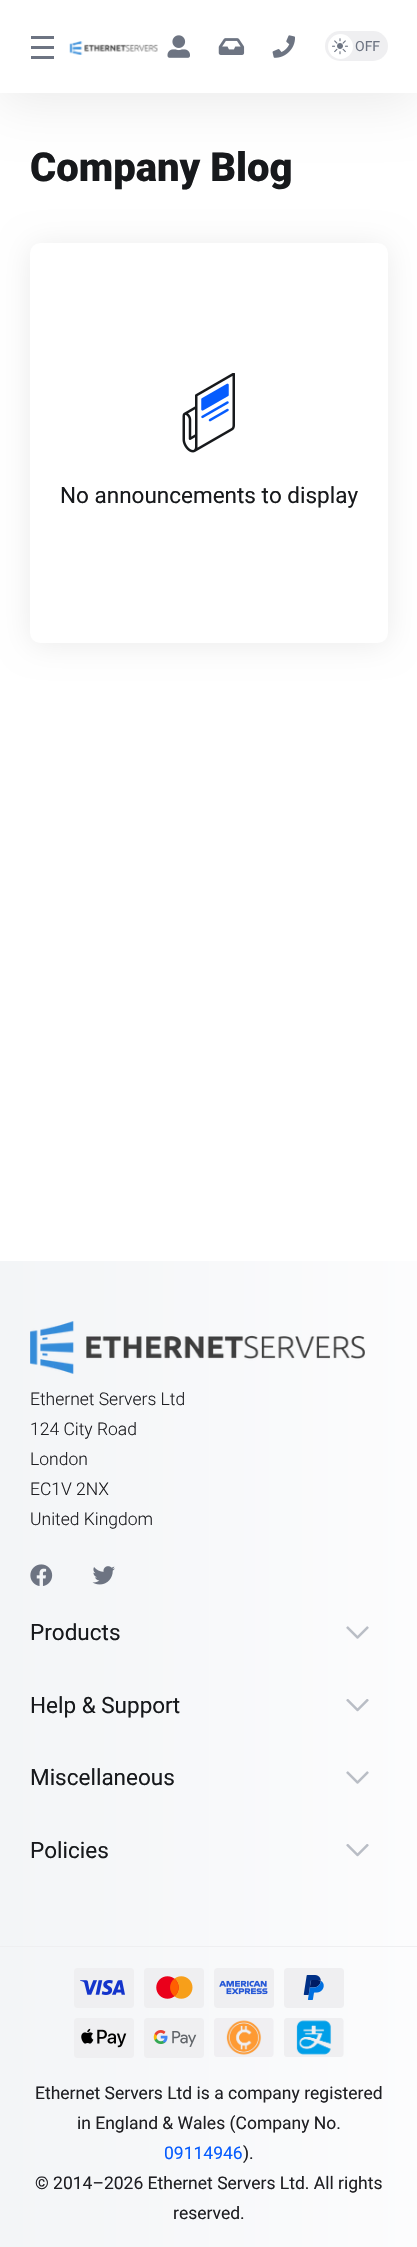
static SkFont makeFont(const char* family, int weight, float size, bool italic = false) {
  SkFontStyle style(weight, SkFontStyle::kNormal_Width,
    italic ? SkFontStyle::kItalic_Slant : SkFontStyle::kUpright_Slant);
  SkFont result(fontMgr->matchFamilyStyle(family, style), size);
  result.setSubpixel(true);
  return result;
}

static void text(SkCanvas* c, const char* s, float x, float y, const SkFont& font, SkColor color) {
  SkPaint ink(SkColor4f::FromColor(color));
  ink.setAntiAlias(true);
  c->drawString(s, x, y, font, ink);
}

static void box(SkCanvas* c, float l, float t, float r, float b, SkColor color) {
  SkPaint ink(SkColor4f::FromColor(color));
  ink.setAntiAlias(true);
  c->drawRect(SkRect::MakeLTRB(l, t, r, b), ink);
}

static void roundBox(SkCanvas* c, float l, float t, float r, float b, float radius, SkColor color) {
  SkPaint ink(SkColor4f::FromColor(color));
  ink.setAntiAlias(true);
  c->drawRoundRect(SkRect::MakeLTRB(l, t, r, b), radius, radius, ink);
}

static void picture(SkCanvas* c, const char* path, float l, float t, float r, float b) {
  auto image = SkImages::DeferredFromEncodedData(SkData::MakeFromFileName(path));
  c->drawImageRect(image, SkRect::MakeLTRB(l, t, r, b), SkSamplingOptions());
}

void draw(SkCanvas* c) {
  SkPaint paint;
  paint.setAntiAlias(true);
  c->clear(0xffffffff);
  paint.setColor(0x14000000);
  paint.setMaskFilter(SkMaskFilter::MakeBlur(kNormal_SkBlurStyle, 25));
  c->drawRect(SkRect::MakeLTRB(0, 10, 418, 103), paint);
  paint.setMaskFilter(nullptr);
  box(c, 0, 0, 417, 93, 0xffffffff);
  box(c, 31, 36, 54, 39, 0xff6d7482);
  box(c, 31, 46, 54, 49, 0xff6d7482);
  box(c, 31, 56, 54, 59, 0xff6d7482);
  picture(c, "img_01.png", 69, 41, 158, 55);
  picture(c, "img_02.png", 167, 35, 190, 58);
  picture(c, "img_03.png", 218, 38, 245, 55);
  picture(c, "img_04.png", 272, 35, 295, 58);
  roundBox(c, 325, 31, 388, 61, 15, 0xffefeff1);
  paint.setColor(0xffffffff);
  c->drawCircle(340.5f, 46.5f, 12.5f, paint);
  picture(c, "img_05.png", 332, 38, 348, 55);
  SkFont face1 = makeFont("Roboto", 400, 14);
  text(c, "OFF", 355, 51, face1, 0xff6d7482);
  SkFont face2 = makeFont("Roboto", 900, 40);
  text(c, "Company Blog", 30, 181, face2, 0xff17191c);
  paint.setColor(0x14000000);
  paint.setMaskFilter(SkMaskFilter::MakeBlur(kNormal_SkBlurStyle, 15));
  c->drawRoundRect(SkRect::MakeLTRB(30, 245, 388, 645), 10, 10, paint);
  paint.setMaskFilter(nullptr);
  roundBox(c, 30, 243, 388, 643, 10, 0xffffffff);
  picture(c, "img_06.png", 182, 373, 235, 453);
  SkFont face3 = makeFont("Roboto", 400, 22.5f);
  text(c, "No announcements to display", 60, 503, face3, 0xff17191c);
  {
    const SkColor colors[] = {0xfffcfcfd, 0xfff3f5f7};
    const float stops[] = {0, 1};
    const SkPoint ends[] = {{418, 1754}, {0, 1754}};
    paint.setShader(SkGradientShader::MakeLinear(ends, colors, stops, 2, SkTileMode::kClamp));
    paint.setAlpha(255);
  }
  c->drawRect(SkRect::MakeLTRB(0, 1261, 417, 2247), paint);
  picture(c, "img_07.png", 30, 1321, 365, 1374);
  SkFont face4 = makeFont("Roboto", 300, 17.5f);
  text(c, "Ethernet Servers Ltd", 30, 1405, face4, 0xff1f1f23);
  text(c, "124 City Road", 30, 1435, face4, 0xff1f1f23);
  text(c, "London", 30, 1465, face4, 0xff1f1f23);
  text(c, "EC1V 2NX", 30, 1495, face4, 0xff1f1f23);
  text(c, "United Kingdom", 30, 1525, face4, 0xff1f1f23);
  picture(c, "img_08.png", 30, 1564, 53, 1586);
  picture(c, "img_09.png", 92, 1566, 115, 1585);
  text(c, "Products", 30, 1640, face3, 0xff17191c);
  picture(c, "img_10.png", 346, 1626, 369, 1639);
  text(c, "Help & Support", 30, 1713, face3, 0xff17191c);
  picture(c, "img_11.png", 346, 1699, 369, 1712);
  text(c, "Miscellaneous", 30, 1785, face3, 0xff17191c);
  picture(c, "img_10.png", 346, 1771, 369, 1784);
  text(c, "Policies", 30, 1858, face3, 0xff17191c);
  picture(c, "img_11.png", 346, 1844, 369, 1857);
  box(c, 0, 1946, 417, 1947, 0xffefeff1);
  roundBox(c, 74, 1968, 134, 2008, 4, 0xffefeff1);
  picture(c, "img_12.png", 80, 1980, 125, 1995);
  roundBox(c, 144, 1968, 204, 2008, 4, 0xffefeff1);
  picture(c, "img_13.png", 156, 1976, 193, 1999);
  roundBox(c, 214, 1968, 274, 2008, 4, 0xffefeff1);
  picture(c, "img_14.png", 219, 1980, 268, 1995);
  roundBox(c, 284, 1968, 344, 2008, 4, 0xffefeff1);
  picture(c, "img_15.png", 303, 1975, 324, 2000);
  roundBox(c, 74, 2018, 134, 2058, 4, 0xffefeff1);
  picture(c, "img_16.png", 81, 2028, 127, 2048);
  roundBox(c, 144, 2018, 204, 2058, 4, 0xffefeff1);
  picture(c, "img_17.png", 153, 2030, 197, 2047);
  picture(c, "img_18.png", 214, 2018, 274, 2057);
  picture(c, "img_19.png", 284, 2018, 344, 2057);
  SkFont face5 = makeFont("Roboto", 400, 17.5f);
  text(c, "Ethernet Servers Ltd is a company registered", 35, 2099, face5, 0xff1f1f23);
  text(c, "in England & Wales (Company No.", 77, 2129, face5, 0xff1f1f23);
  text(c, "09114946", 164, 2159, face5, 0xff065cfe);
  text(c, ").", 243, 2159, face5, 0xff1f1f23);
  text(c, "© 2014–2026 Ethernet Servers Ltd. All rights", 35, 2189, face5, 0xff1f1f23);
  text(c, "reserved.", 173, 2219, face5, 0xff1f1f23);
}
